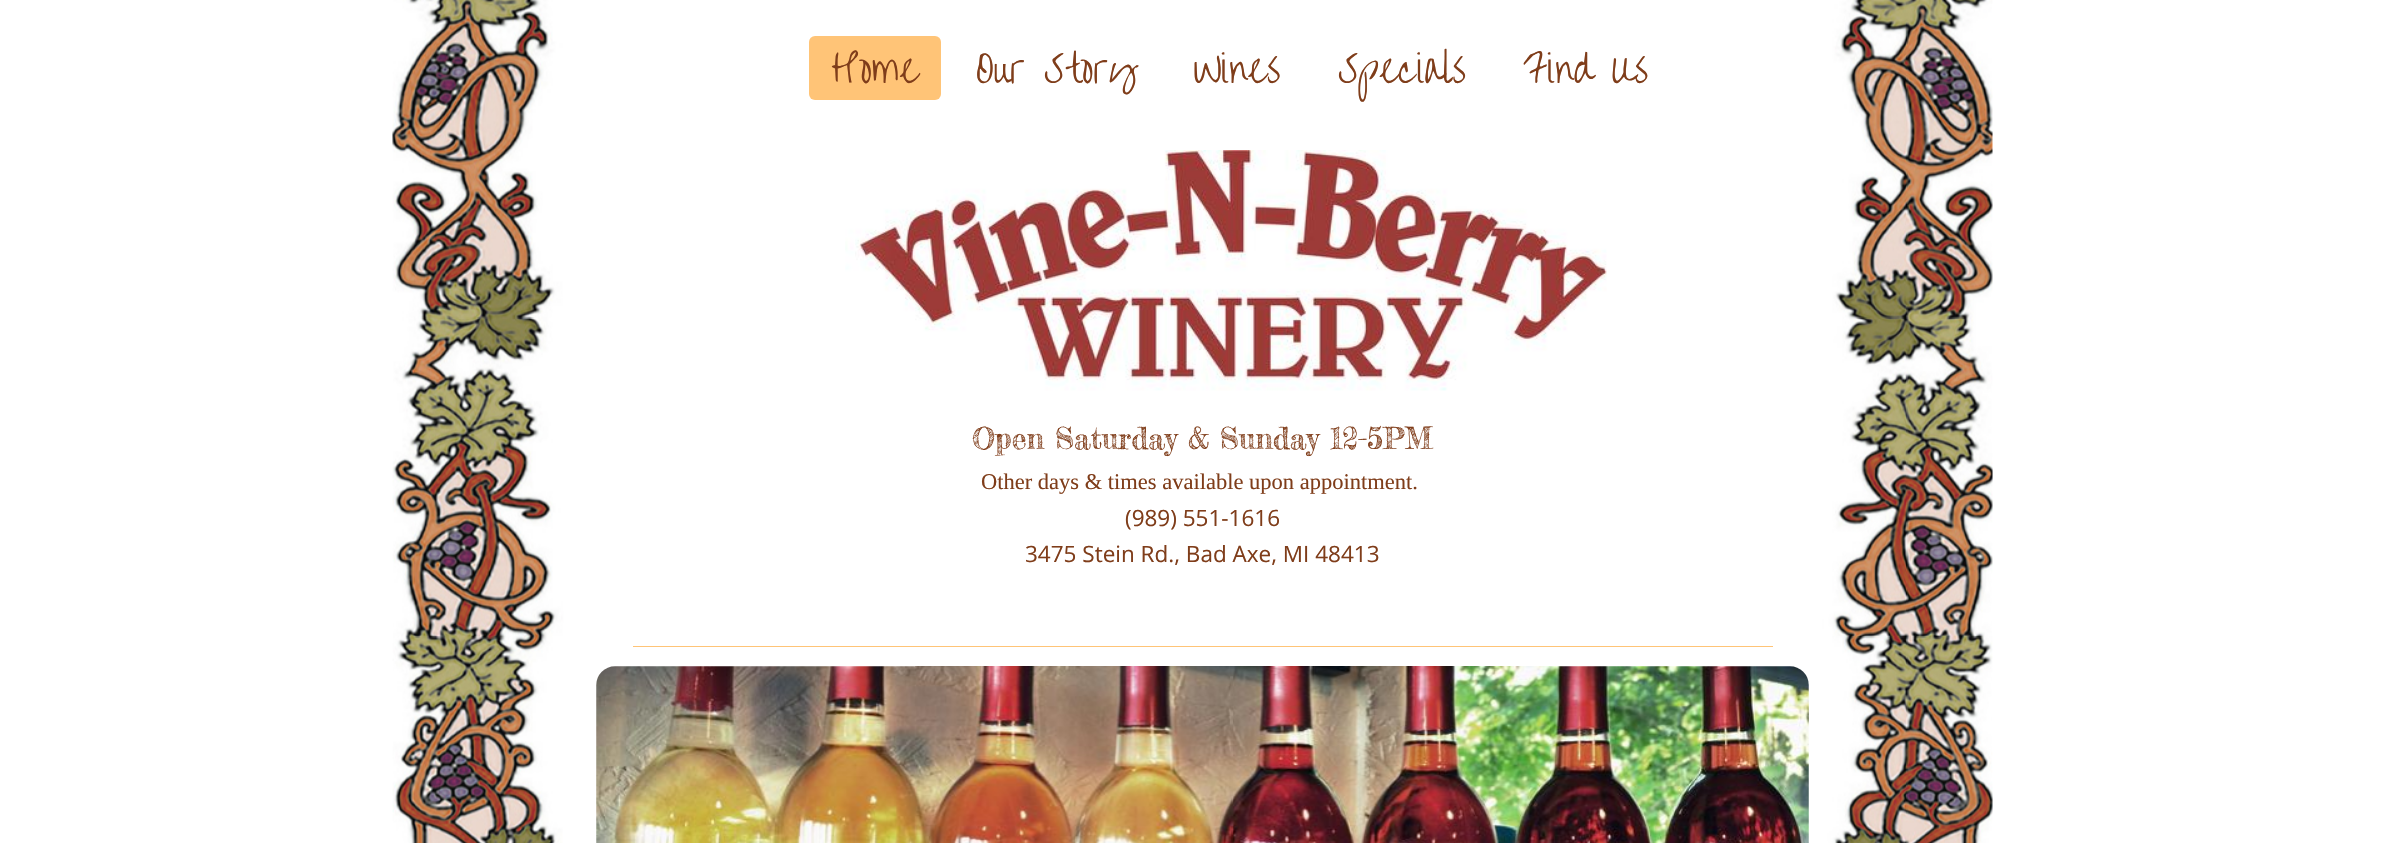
static SkFont makeFont(const char* family, int weight, float size, bool italic = false) {
  SkFontStyle style(weight, SkFontStyle::kNormal_Width,
    italic ? SkFontStyle::kItalic_Slant : SkFontStyle::kUpright_Slant);
  SkFont result(fontMgr->matchFamilyStyle(family, style), size);
  result.setSubpixel(true);
  return result;
}

static void text(SkCanvas* c, const char* s, float x, float y, const SkFont& font, SkColor color) {
  SkPaint ink(SkColor4f::FromColor(color));
  ink.setAntiAlias(true);
  c->drawString(s, x, y, font, ink);
}

static void box(SkCanvas* c, float l, float t, float r, float b, SkColor color) {
  SkPaint ink(SkColor4f::FromColor(color));
  ink.setAntiAlias(true);
  c->drawRect(SkRect::MakeLTRB(l, t, r, b), ink);
}

static void roundBox(SkCanvas* c, float l, float t, float r, float b, float radius, SkColor color) {
  SkPaint ink(SkColor4f::FromColor(color));
  ink.setAntiAlias(true);
  c->drawRoundRect(SkRect::MakeLTRB(l, t, r, b), radius, radius, ink);
}

static void picture(SkCanvas* c, const char* path, float l, float t, float r, float b) {
  auto image = SkImages::DeferredFromEncodedData(SkData::MakeFromFileName(path));
  c->drawImageRect(image, SkRect::MakeLTRB(l, t, r, b), SkSamplingOptions());
}

void draw(SkCanvas* c) {
  SkPaint paint;
  paint.setAntiAlias(true);
  c->clear(0xffffffff);
  picture(c, "img_01.png", 392, 0, 1993, 843);
  roundBox(c, 809, 36, 941, 100, 6, 0xffffc477);
  SkFont face1 = makeFont("Over the Rainbow", 400, 37.5f);
  text(c, "Home", 831, 83, face1, 0xff7f3d1a);
  text(c, "Our Story", 976, 83, face1, 0xff7f3d1a);
  text(c, "Wines", 1194, 83, face1, 0xff7f3d1a);
  text(c, "Specials", 1338, 83, face1, 0xff7f3d1a);
  text(c, "Find Us", 1523, 83, face1, 0xff7f3d1a);
  picture(c, "img_02.png", 845, 150, 1607, 391);
  SkFont face2 = makeFont("Fredericka the Great", 400, 30);
  text(c, "Open Saturday & Sunday 12-5PM", 972, 449, face2, 0xff7f3d1a);
  SkFont face3 = makeFont("Liberation Serif", 400, 22.5f);
  text(c, "Other days & times available upon appointment.", 981, 489, face3, 0xff7f3d1a);
  SkFont face4 = makeFont("Open Sans", 400, 22.5f);
  text(c, "(989) 551-1616", 1125, 526, face4, 0xff7f3d1a);
  text(c, "3475 Stein Rd., Bad Axe, MI 48413", 1025, 562, face4, 0xff7f3d1a);
  box(c, 633, 646, 1773, 647, 0xffffc477);
  picture(c, "img_03.png", 596, 666, 1809, 843);
}
